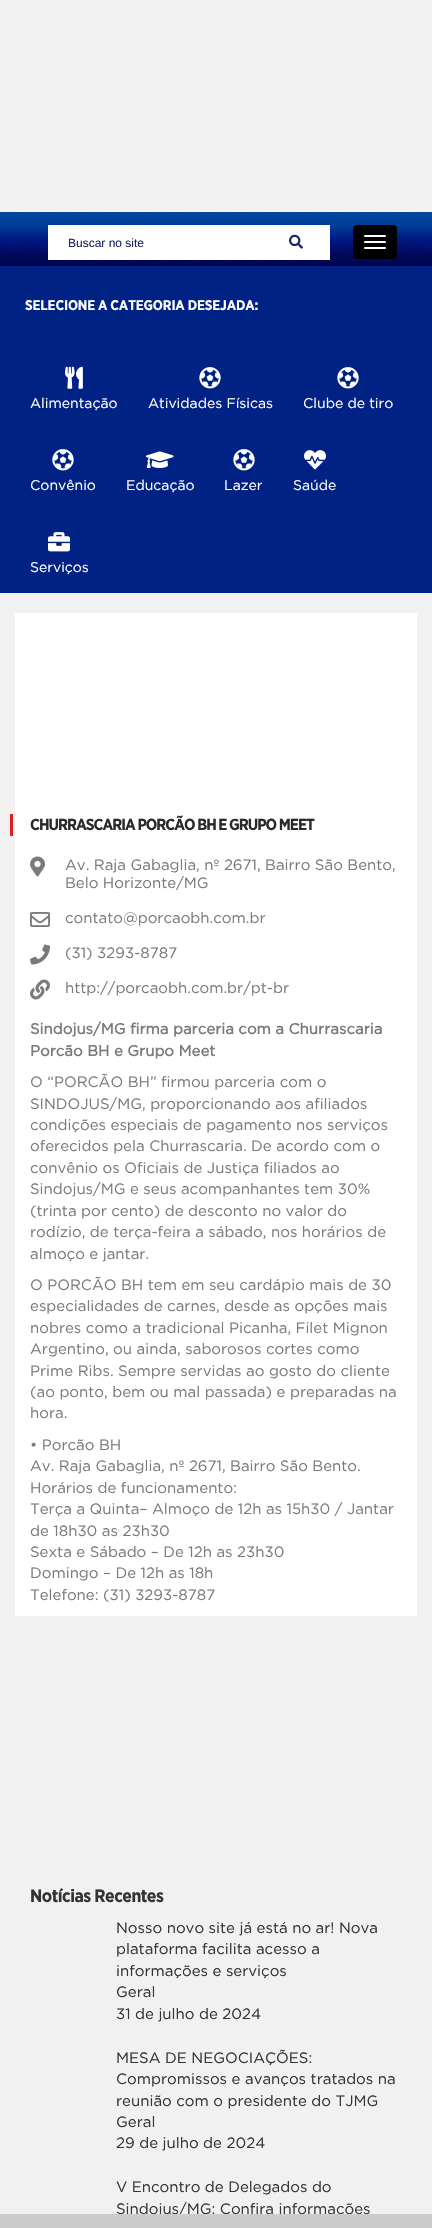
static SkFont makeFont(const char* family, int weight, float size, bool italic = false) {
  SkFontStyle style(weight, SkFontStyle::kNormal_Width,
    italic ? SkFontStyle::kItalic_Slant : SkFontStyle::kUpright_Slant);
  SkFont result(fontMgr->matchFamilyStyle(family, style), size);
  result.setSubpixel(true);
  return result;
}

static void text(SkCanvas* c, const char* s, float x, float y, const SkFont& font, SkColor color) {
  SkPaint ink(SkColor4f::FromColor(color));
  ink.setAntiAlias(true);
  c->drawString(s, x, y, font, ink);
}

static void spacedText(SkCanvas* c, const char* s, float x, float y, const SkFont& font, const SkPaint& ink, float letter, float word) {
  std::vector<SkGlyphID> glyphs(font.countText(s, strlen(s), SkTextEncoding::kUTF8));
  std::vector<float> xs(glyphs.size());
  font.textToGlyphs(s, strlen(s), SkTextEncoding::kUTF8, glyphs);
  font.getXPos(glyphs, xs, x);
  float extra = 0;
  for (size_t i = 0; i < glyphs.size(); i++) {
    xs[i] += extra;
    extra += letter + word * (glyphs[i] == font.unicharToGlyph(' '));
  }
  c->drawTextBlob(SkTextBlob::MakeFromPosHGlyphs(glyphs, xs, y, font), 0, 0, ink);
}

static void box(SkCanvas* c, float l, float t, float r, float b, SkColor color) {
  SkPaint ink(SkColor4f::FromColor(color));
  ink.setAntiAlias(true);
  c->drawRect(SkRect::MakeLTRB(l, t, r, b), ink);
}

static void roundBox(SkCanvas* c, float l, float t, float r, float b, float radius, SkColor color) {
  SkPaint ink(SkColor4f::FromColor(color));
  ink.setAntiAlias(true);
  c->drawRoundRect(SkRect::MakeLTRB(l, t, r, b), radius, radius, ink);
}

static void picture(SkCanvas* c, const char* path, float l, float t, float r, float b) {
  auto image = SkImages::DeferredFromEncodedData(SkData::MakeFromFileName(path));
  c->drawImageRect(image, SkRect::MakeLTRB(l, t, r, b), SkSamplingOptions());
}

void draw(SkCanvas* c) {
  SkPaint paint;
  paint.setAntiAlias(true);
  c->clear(0xfff1f1f1);
  box(c, 0, 0, 432, 1, 0xfff0f0e9);
  box(c, 15, 211, 417, 212, 0xfff5f5f5);
  SkFont face1 = makeFont("Gotham", 400, 15);
  text(c, "Sindojus/MG: Confira informações", 116, 2214, face1, 0xff333333);
  box(c, 0, 2214, 432, 2228, 0xffcccccc);
  picture(c, "img_01.png", 0, 212, 432, 266);
  box(c, 48, 225, 330, 260, 0xffffffff);
  SkFont face2 = makeFont("Liberation Sans", 400, 12);
  text(c, "Buscar no site", 68, 247, face2, 0xff1e2363);
  picture(c, "img_02.png", 289, 234, 303, 249);
  roundBox(c, 353, 225, 397, 259, 4, 0xff000000);
  roundBox(c, 364, 235, 386, 237, 1, 0xffffffff);
  roundBox(c, 364, 241, 386, 243, 1, 0xffffffff);
  roundBox(c, 364, 247, 386, 249, 1, 0xffffffff);
  box(c, 0, 266, 432, 593, 0xff002284);
  SkFont face3 = makeFont("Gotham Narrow", 700, 14);
  paint.setColor(0xffffffff);
  spacedText(c, "SELECIONE A CATEGORIA DESEJADA:", 25, 310, face3, paint, -0.15f, 0);
  picture(c, "img_03.png", 65, 366, 83, 389);
  SkFont face4 = makeFont("Gotham", 400, 14);
  text(c, "Alimentação", 30, 408, face4, 0xffffffff);
  picture(c, "img_04.png", 199, 367, 221, 389);
  text(c, "Atividades Físicas", 148, 408, face4, 0xffffffff);
  picture(c, "img_04.png", 337, 367, 359, 389);
  text(c, "Clube de tiro", 303, 408, face4, 0xffffffff);
  picture(c, "img_04.png", 52, 449, 74, 471);
  text(c, "Convênio", 30, 490, face4, 0xffffffff);
  picture(c, "img_05.png", 146, 451, 174, 468);
  text(c, "Educação", 126, 490, face4, 0xffffffff);
  picture(c, "img_04.png", 233, 449, 255, 471);
  text(c, "Lazer", 224, 490, face4, 0xffffffff);
  picture(c, "img_06.png", 304, 450, 326, 470);
  text(c, "Saúde", 293, 490, face4, 0xffffffff);
  picture(c, "img_07.png", 48, 532, 70, 552);
  text(c, "Serviços", 30, 572, face4, 0xffffffff);
  box(c, 15, 613, 417, 1616, 0xffffffff);
  box(c, 10, 814, 13, 836, 0xffdf2126);
  SkFont face5 = makeFont("Gotham Narrow", 700, 16);
  paint.setColor(0xff2a2a2a);
  spacedText(c, "CHURRASCARIA PORCÃO BH E GRUPO MEET", 30, 830, face5, paint, -1, 0);
  picture(c, "img_08.png", 30, 856, 45, 877);
  text(c, "Av. Raja Gabaglia, nº 2671, Bairro São Bento,", 65, 870, face1, 0xff7a7a7a);
  text(c, "Belo Horizonte/MG", 65, 888, face1, 0xff7a7a7a);
  picture(c, "img_09.png", 30, 912, 50, 927);
  text(c, "contato@porcaobh.com.br", 65, 923, face1, 0xff7a7a7a);
  picture(c, "img_10.png", 30, 944, 50, 965);
  text(c, "(31) 3293-8787", 65, 958, face1, 0xff7a7a7a);
  picture(c, "img_11.png", 30, 979, 50, 1000);
  text(c, "http://porcaobh.com.br/pt-br", 65, 993, face1, 0xff7a7a7a);
  SkFont face6 = makeFont("Gotham", 700, 15);
  text(c, "Sindojus/MG firma parceria com a Churrascaria", 30, 1034, face6, 0xff7a7a7a);
  text(c, "Porcão BH e Grupo Meet", 30, 1056, face6, 0xff7a7a7a);
  text(c, "O “PORCÃO BH” firmou parceria com o", 30, 1087, face1, 0xff7a7a7a);
  text(c, "SINDOJUS/MG, proporcionando aos afiliados", 30, 1109, face1, 0xff7a7a7a);
  text(c, "condições especiais de pagamento nos serviços", 30, 1130, face1, 0xff7a7a7a);
  text(c, "oferecidos pela Churrascaria. De acordo com o", 30, 1151, face1, 0xff7a7a7a);
  text(c, "convênio os Oficiais de Justiça filiados ao", 30, 1173, face1, 0xff7a7a7a);
  text(c, "Sindojus/MG e seus acompanhantes tem 30%", 30, 1194, face1, 0xff7a7a7a);
  text(c, "(trinta por cento) de desconto no valor do", 30, 1216, face1, 0xff7a7a7a);
  text(c, "rodízio, de terça-feira a sábado, nos horários de", 30, 1237, face1, 0xff7a7a7a);
  text(c, "almoço e jantar.", 30, 1259, face1, 0xff7a7a7a);
  text(c, "O PORCÃO BH tem em seu cardápio mais de 30", 30, 1290, face1, 0xff7a7a7a);
  text(c, "especialidades de carnes, desde as opções mais", 30, 1311, face1, 0xff7a7a7a);
  text(c, "nobres como a tradicional Picanha, Filet Mignon", 30, 1333, face1, 0xff7a7a7a);
  text(c, "Argentino, ou ainda, saborosos cortes como", 30, 1354, face1, 0xff7a7a7a);
  text(c, "Prime Ribs. Sempre servidas ao gosto do cliente", 30, 1376, face1, 0xff7a7a7a);
  text(c, "(ao ponto, bem ou mal passada) e preparadas na", 30, 1397, face1, 0xff7a7a7a);
  text(c, "hora.", 30, 1418, face1, 0xff7a7a7a);
  text(c, "• Porcão BH", 30, 1450, face1, 0xff7a7a7a);
  text(c, "Av. Raja Gabaglia, nº 2671, Bairro São Bento.", 30, 1471, face1, 0xff7a7a7a);
  text(c, "Horários de funcionamento:", 30, 1493, face1, 0xff7a7a7a);
  text(c, "Terça a Quinta– Almoço de 12h as 15h30 / Jantar", 30, 1514, face1, 0xff7a7a7a);
  text(c, "de 18h30 as 23h30", 30, 1536, face1, 0xff7a7a7a);
  text(c, "Sexta e Sábado – De 12h as 23h30", 30, 1557, face1, 0xff7a7a7a);
  text(c, "Domingo – De 12h as 18h", 30, 1578, face1, 0xff7a7a7a);
  text(c, "Telefone: (31) 3293-8787", 30, 1600, face1, 0xff7a7a7a);
  SkFont face7 = makeFont("Gotham Narrow", 700, 18);
  paint.setColor(0xff333333);
  spacedText(c, "Notícias Recentes", 30, 1902, face7, paint, -0.5f, 0);
  text(c, "Nosso novo site já está no ar! Nova", 116, 1933, face1, 0xff333333);
  text(c, "plataforma facilita acesso a", 116, 1954, face1, 0xff333333);
  text(c, "informações e serviços", 116, 1976, face1, 0xff333333);
  text(c, "Geral", 116, 1997, face1, 0xff333333);
  text(c, "31 de julho de 2024", 116, 2019, face1, 0xff333333);
  text(c, "MESA DE NEGOCIAÇÕES:", 116, 2063, face1, 0xff333333);
  text(c, "Compromissos e avanços tratados na", 116, 2084, face1, 0xff333333);
  text(c, "reunião com o presidente do TJMG", 116, 2106, face1, 0xff333333);
  text(c, "Geral", 116, 2127, face1, 0xff333333);
  text(c, "29 de julho de 2024", 116, 2148, face1, 0xff333333);
  text(c, "V Encontro de Delegados do", 116, 2192, face1, 0xff333333);
}
